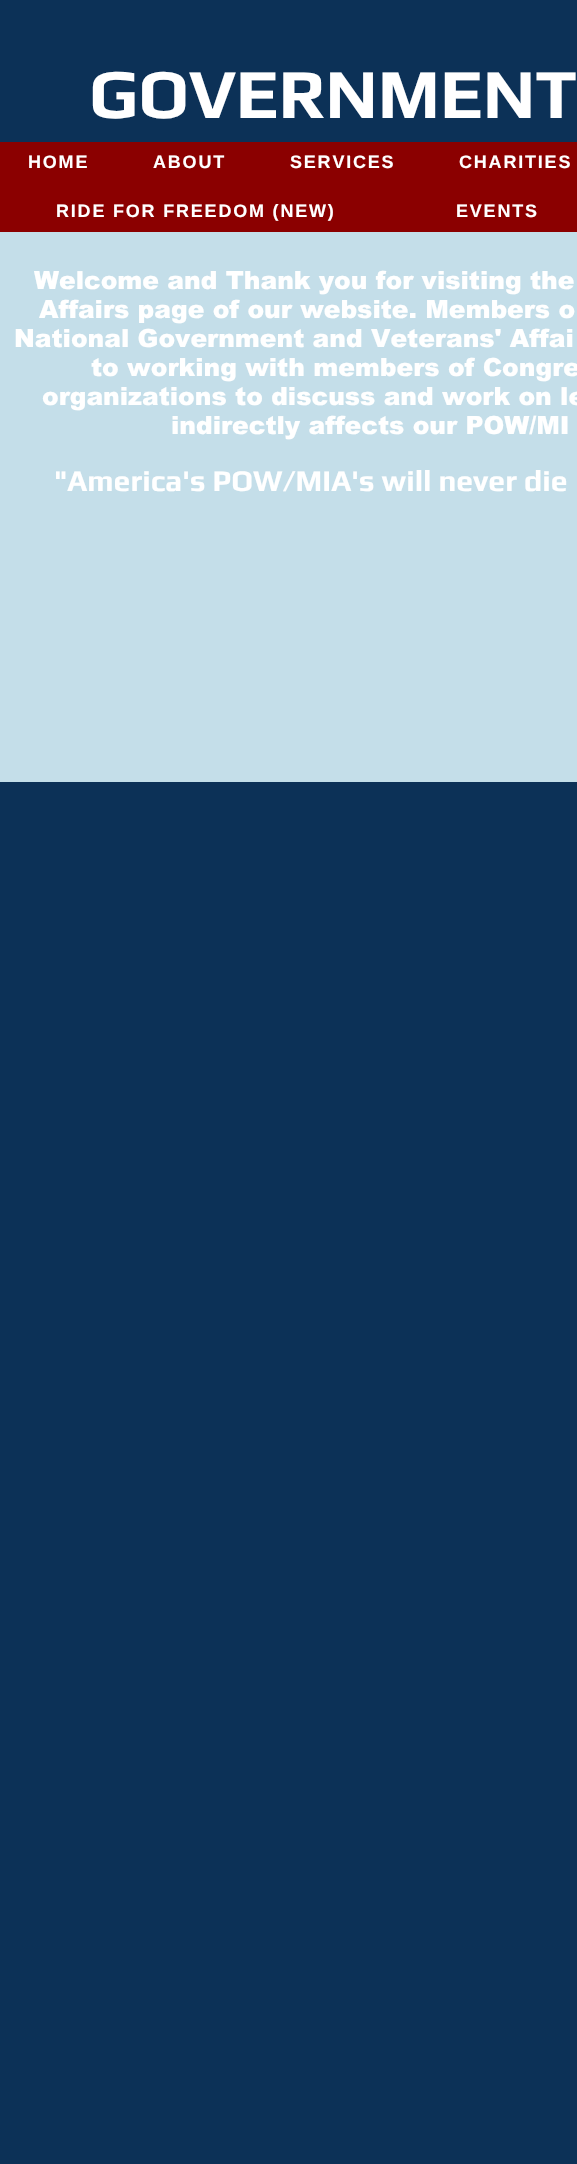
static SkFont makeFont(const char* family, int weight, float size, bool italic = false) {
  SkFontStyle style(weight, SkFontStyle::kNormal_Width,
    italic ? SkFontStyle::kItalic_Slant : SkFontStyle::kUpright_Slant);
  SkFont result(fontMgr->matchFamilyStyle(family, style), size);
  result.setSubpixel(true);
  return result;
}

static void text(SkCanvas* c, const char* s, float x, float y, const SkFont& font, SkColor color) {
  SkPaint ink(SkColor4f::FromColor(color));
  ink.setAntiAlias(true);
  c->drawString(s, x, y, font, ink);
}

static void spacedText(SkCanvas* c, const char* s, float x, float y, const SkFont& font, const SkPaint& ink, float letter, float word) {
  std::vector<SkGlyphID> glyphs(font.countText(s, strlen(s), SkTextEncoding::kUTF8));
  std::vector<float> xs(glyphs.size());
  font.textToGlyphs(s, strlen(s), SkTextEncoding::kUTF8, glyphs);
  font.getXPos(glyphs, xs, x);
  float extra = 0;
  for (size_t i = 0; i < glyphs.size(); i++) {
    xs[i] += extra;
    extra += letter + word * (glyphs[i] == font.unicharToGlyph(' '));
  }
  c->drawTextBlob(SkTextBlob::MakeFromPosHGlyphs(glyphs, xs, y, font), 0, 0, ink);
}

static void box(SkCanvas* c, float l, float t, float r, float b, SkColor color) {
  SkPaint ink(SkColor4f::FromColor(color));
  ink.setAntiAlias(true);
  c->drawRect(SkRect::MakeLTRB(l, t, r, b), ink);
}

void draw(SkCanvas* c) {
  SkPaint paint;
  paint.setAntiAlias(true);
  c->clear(0xff0c3157);
  SkFont face1 = makeFont("Play", 700, 70);
  text(c, "GOVERNMENT", 89, 118, face1, 0xffffffff);
  box(c, 0, 142, 577, 232, 0xff8b0000);
  SkFont face2 = makeFont("Liberation Sans", 700, 18);
  paint.setColor(0xffffffff);
  spacedText(c, "HOME", 28, 168, face2, paint, 1.8f, 0);
  spacedText(c, "ABOUT", 153, 168, face2, paint, 1.8f, 0);
  spacedText(c, "SERVICES", 290, 168, face2, paint, 1.8f, 0);
  spacedText(c, "CHARITIES", 459, 168, face2, paint, 1.8f, 0);
  spacedText(c, "RIDE FOR FREEDOM (NEW)", 56, 217, face2, paint, 1.8f, 0);
  spacedText(c, "EVENTS", 456, 217, face2, paint, 1.8f, 0);
  box(c, 0, 232, 577, 782, 0xffc4dee9);
  SkFont face3 = makeFont("arial", 900, 25);
  text(c, "Welcome and Thank you for visiting the", 34, 289, face3, 0xffffffff);
  text(c, "Affairs page of our website. Members o", 39, 318, face3, 0xffffffff);
  text(c, "National Government and Veterans' Affai", 14, 347, face3, 0xffffffff);
  text(c, "to working with members of Congre", 91, 376, face3, 0xffffffff);
  text(c, "organizations to discuss and work on le", 42, 405, face3, 0xffffffff);
  text(c, "indirectly affects our POW/MI", 171, 434, face3, 0xffffffff);
  SkFont face4 = makeFont("Play", 700, 30);
  text(c, "\"America's POW/MIA's will never die", 54, 491, face4, 0xffffffff);
}
